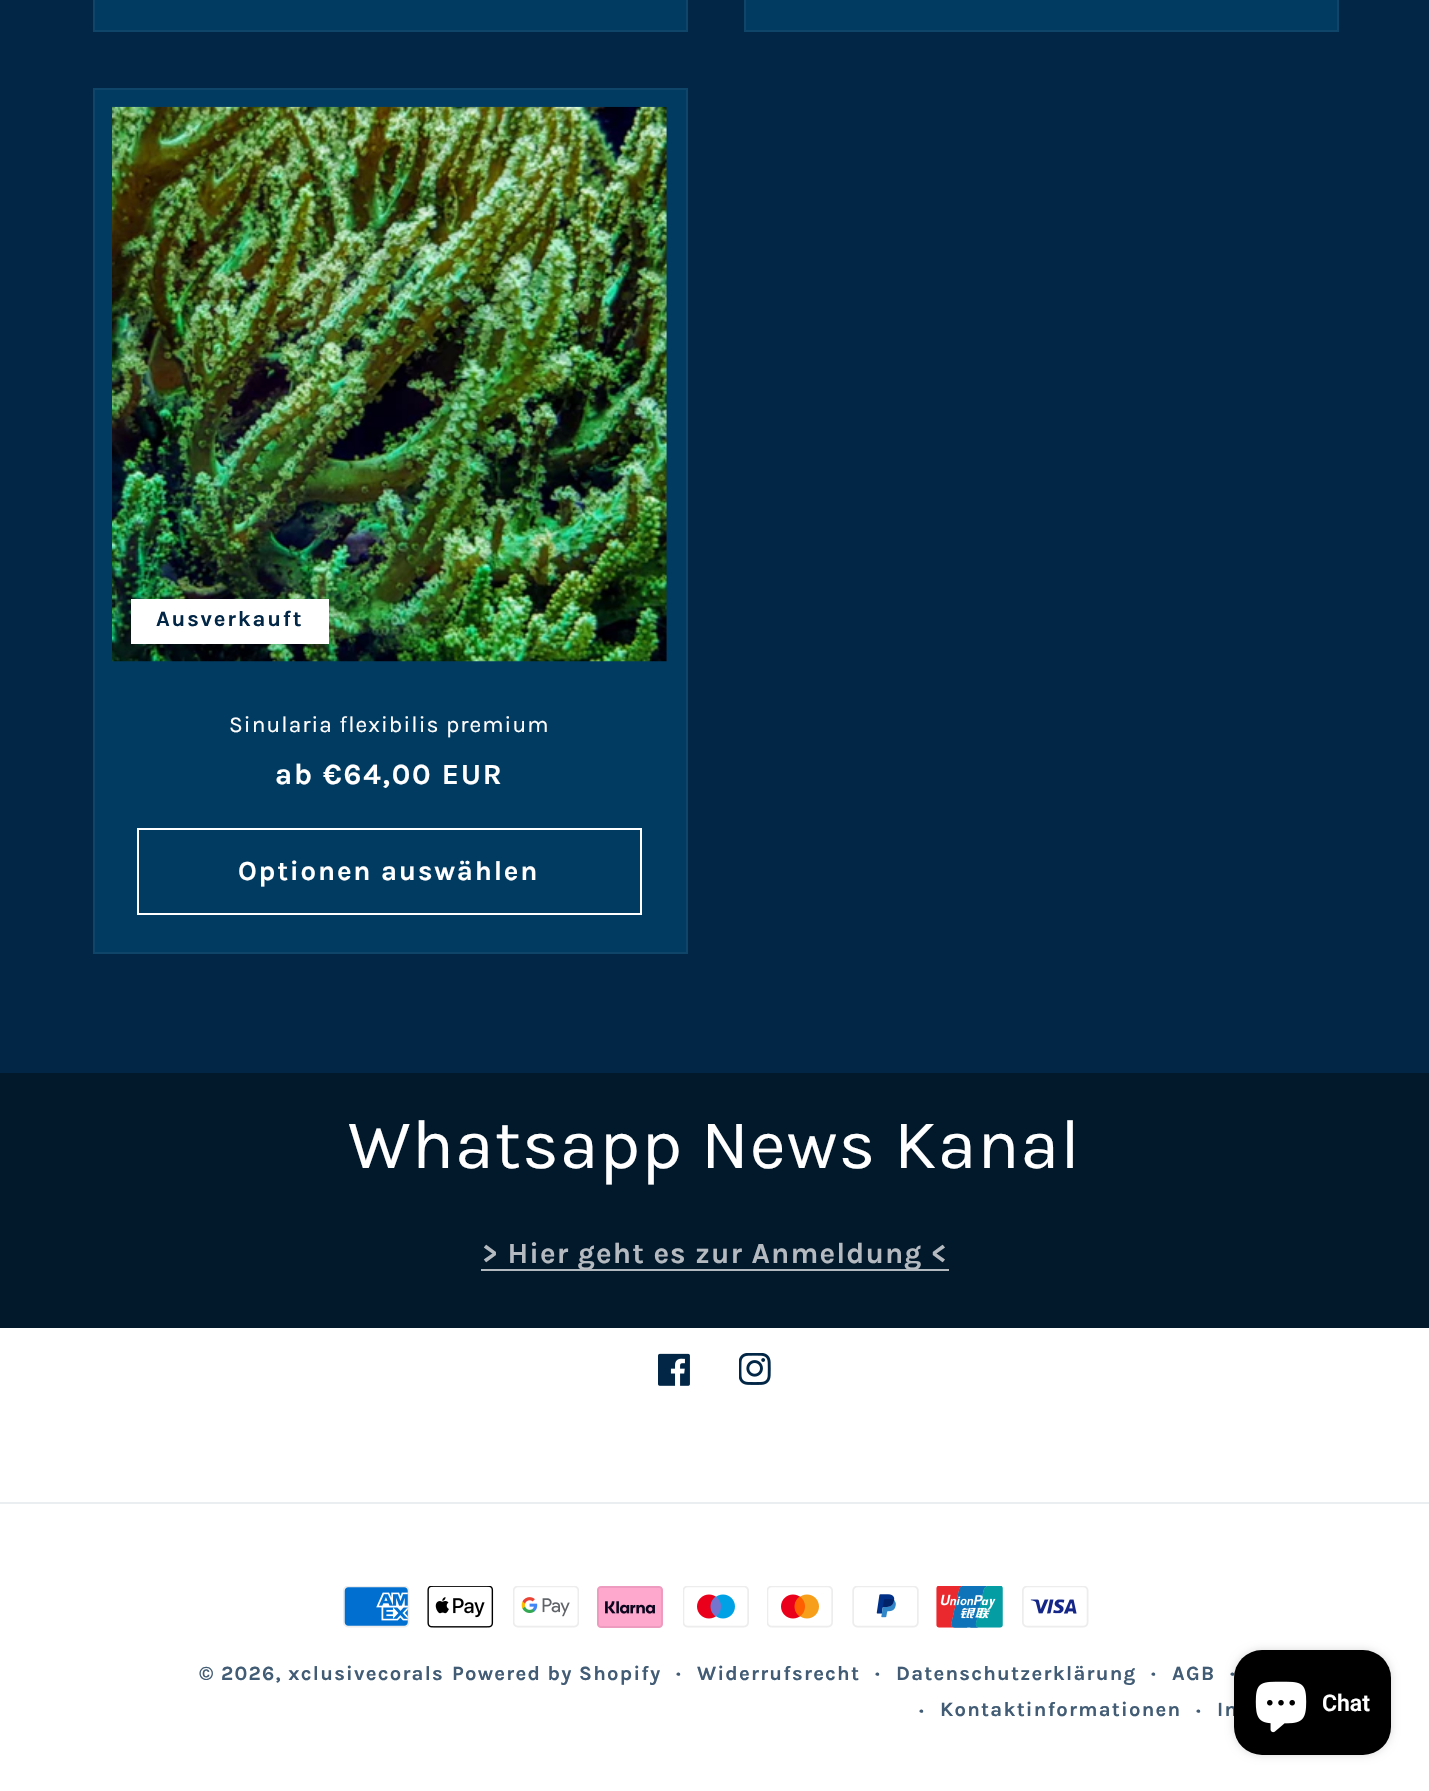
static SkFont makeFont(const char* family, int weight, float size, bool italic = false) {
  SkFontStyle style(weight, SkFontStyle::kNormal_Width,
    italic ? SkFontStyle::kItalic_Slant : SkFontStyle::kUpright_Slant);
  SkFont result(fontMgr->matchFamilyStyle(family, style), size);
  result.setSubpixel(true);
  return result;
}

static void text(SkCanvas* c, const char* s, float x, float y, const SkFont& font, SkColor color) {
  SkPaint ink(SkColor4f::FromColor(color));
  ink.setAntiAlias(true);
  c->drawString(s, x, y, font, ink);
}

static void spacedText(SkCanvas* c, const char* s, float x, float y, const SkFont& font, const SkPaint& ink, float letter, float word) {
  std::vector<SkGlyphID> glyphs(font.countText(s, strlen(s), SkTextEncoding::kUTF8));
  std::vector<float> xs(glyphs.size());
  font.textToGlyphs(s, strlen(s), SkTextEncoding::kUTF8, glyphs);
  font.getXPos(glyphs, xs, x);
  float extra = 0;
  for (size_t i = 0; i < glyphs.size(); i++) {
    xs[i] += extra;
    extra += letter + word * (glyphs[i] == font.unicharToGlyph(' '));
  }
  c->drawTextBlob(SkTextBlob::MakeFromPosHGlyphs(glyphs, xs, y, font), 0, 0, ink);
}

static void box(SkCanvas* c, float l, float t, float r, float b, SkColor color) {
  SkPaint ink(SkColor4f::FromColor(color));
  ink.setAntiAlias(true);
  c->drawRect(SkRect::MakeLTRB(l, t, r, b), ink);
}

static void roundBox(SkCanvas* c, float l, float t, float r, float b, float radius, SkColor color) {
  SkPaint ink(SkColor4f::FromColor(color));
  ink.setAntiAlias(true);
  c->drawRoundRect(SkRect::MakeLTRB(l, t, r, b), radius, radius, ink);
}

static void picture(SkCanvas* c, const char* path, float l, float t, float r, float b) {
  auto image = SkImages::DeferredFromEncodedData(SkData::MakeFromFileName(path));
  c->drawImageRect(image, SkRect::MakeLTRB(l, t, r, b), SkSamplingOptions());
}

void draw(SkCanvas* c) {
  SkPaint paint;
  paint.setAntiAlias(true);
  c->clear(0xff012646);
  paint.setColor(0xff023b61);
  c->drawRect(SkRect::MakeLTRB(94, -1, 687, 31), paint);
  paint.setStyle(SkPaint::kStroke_Style);
  paint.setStrokeWidth(2);
  paint.setColor(0xff0f4569);
  c->drawRect(SkRect::MakeLTRB(94, -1, 687, 31), paint);
  paint.setStyle(SkPaint::kFill_Style);
  paint.setColor(0xff023b61);
  c->drawRect(SkRect::MakeLTRB(745, -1, 1338, 31), paint);
  paint.setStyle(SkPaint::kStroke_Style);
  paint.setColor(0xff0f4569);
  c->drawRect(SkRect::MakeLTRB(745, -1, 1338, 31), paint);
  paint.setStyle(SkPaint::kFill_Style);
  paint.setColor(0xff023b61);
  c->drawRect(SkRect::MakeLTRB(94, 89, 687, 953), paint);
  paint.setStyle(SkPaint::kStroke_Style);
  paint.setColor(0xff0f4569);
  c->drawRect(SkRect::MakeLTRB(94, 89, 687, 953), paint);
  picture(c, "img_01.png", 112, 106, 667, 662);
  box(c, 131, 599, 329, 644, 0xffffffff);
  SkFont face1 = makeFont("Karla", 700, 22);
  paint.setStyle(SkPaint::kFill_Style);
  paint.setColor(0xff012646);
  spacedText(c, "Ausverkauft", 156, 626, face1, paint, 1.8f, 0);
  SkFont face2 = makeFont("Karla", 400, 22.75f);
  paint.setColor(0xffffffff);
  spacedText(c, "Sinularia flexibilis premium", 229, 732, face2, paint, 1.05f, 0);
  SkFont face3 = makeFont("Karla", 700, 29.4f);
  spacedText(c, "ab €64,00 EUR", 275, 784, face3, paint, 1.8f, 0);
  paint.setStyle(SkPaint::kStroke_Style);
  c->drawRect(SkRect::MakeLTRB(138, 829, 641, 914), paint);
  SkFont face4 = makeFont("Karla", 700, 27.5f);
  paint.setStyle(SkPaint::kFill_Style);
  spacedText(c, "Optionen auswählen", 238, 880, face4, paint, 1.8f, 0);
  box(c, 0, 1073, 1429, 1328, 0xff02182b);
  SkFont face5 = makeFont("Karla", 400, 70);
  spacedText(c, "Whatsapp News Kanal", 348, 1168, face5, paint, 1.05f, 0);
  box(c, 481, 1269, 949, 1271, 0xffb3babf);
  paint.setColor(0xffb4bac0);
  spacedText(c, "> Hier geht es zur Anmeldung <", 482, 1263, face3, paint, 1.1f, 0);
  box(c, 0, 1328, 1429, 1791, 0xffffffff);
  picture(c, "img_02.png", 658, 1353, 690, 1386);
  picture(c, "img_03.png", 739, 1353, 771, 1385);
  box(c, 0, 1502, 1429, 1504, 0xffebeef0);
  picture(c, "img_04.png", 343, 1586, 410, 1628);
  picture(c, "img_05.png", 427, 1586, 494, 1628);
  picture(c, "img_06.png", 513, 1586, 579, 1628);
  picture(c, "img_07.png", 597, 1586, 663, 1628);
  picture(c, "img_08.png", 683, 1586, 749, 1628);
  picture(c, "img_09.png", 767, 1586, 833, 1628);
  picture(c, "img_10.png", 852, 1586, 919, 1628);
  picture(c, "img_11.png", 936, 1586, 1003, 1628);
  picture(c, "img_12.png", 1022, 1586, 1089, 1628);
  SkFont face6 = makeFont("Karla", 700, 20.25f);
  paint.setColor(0xff415c74);
  spacedText(c, "© 2026, xclusivecorals", 199, 1680, face6, paint, 1.25f, 0);
  spacedText(c, "Powered by Shopify", 452, 1680, face6, paint, 1.25f, 0);
  spacedText(c, "·", 676, 1680, face1, paint, 1.25f, 0);
  spacedText(c, "Widerrufsrecht", 697, 1680, face6, paint, 1.25f, 0);
  spacedText(c, "·", 875, 1680, face1, paint, 1.25f, 0);
  spacedText(c, "Datenschutzerklärung", 896, 1680, face6, paint, 1.25f, 0);
  spacedText(c, "·", 1151, 1680, face1, paint, 1.25f, 0);
  spacedText(c, "AGB", 1172, 1680, face6, paint, 1.25f, 0);
  spacedText(c, "·", 1230, 1680, face1, paint, 1.25f, 0);
  spacedText(c, "·", 919, 1717, face1, paint, 1.25f, 0);
  spacedText(c, "Kontaktinformationen", 940, 1716, face6, paint, 1.25f, 0);
  spacedText(c, "·", 1196, 1717, face1, paint, 1.25f, 0);
  spacedText(c, "Im", 1217, 1716, face6, paint, 1.25f, 0);
  paint.setColor(0x26000000);
  paint.setMaskFilter(SkMaskFilter::MakeBlur(kNormal_SkBlurStyle, 4.5f));
  c->drawRoundRect(SkRect::MakeLTRB(1234, 1650, 1391, 1755), 28, 28, paint);
  paint.setMaskFilter(nullptr);
  roundBox(c, 1234, 1650, 1391, 1755, 28, 0xff000000);
  picture(c, "img_13.png", 1255, 1681, 1307, 1733);
  SkFont face7 = makeFont("Roboto", 600, 23);
  text(c, "Chat", 1322, 1711, face7, 0xffffffff);
}
